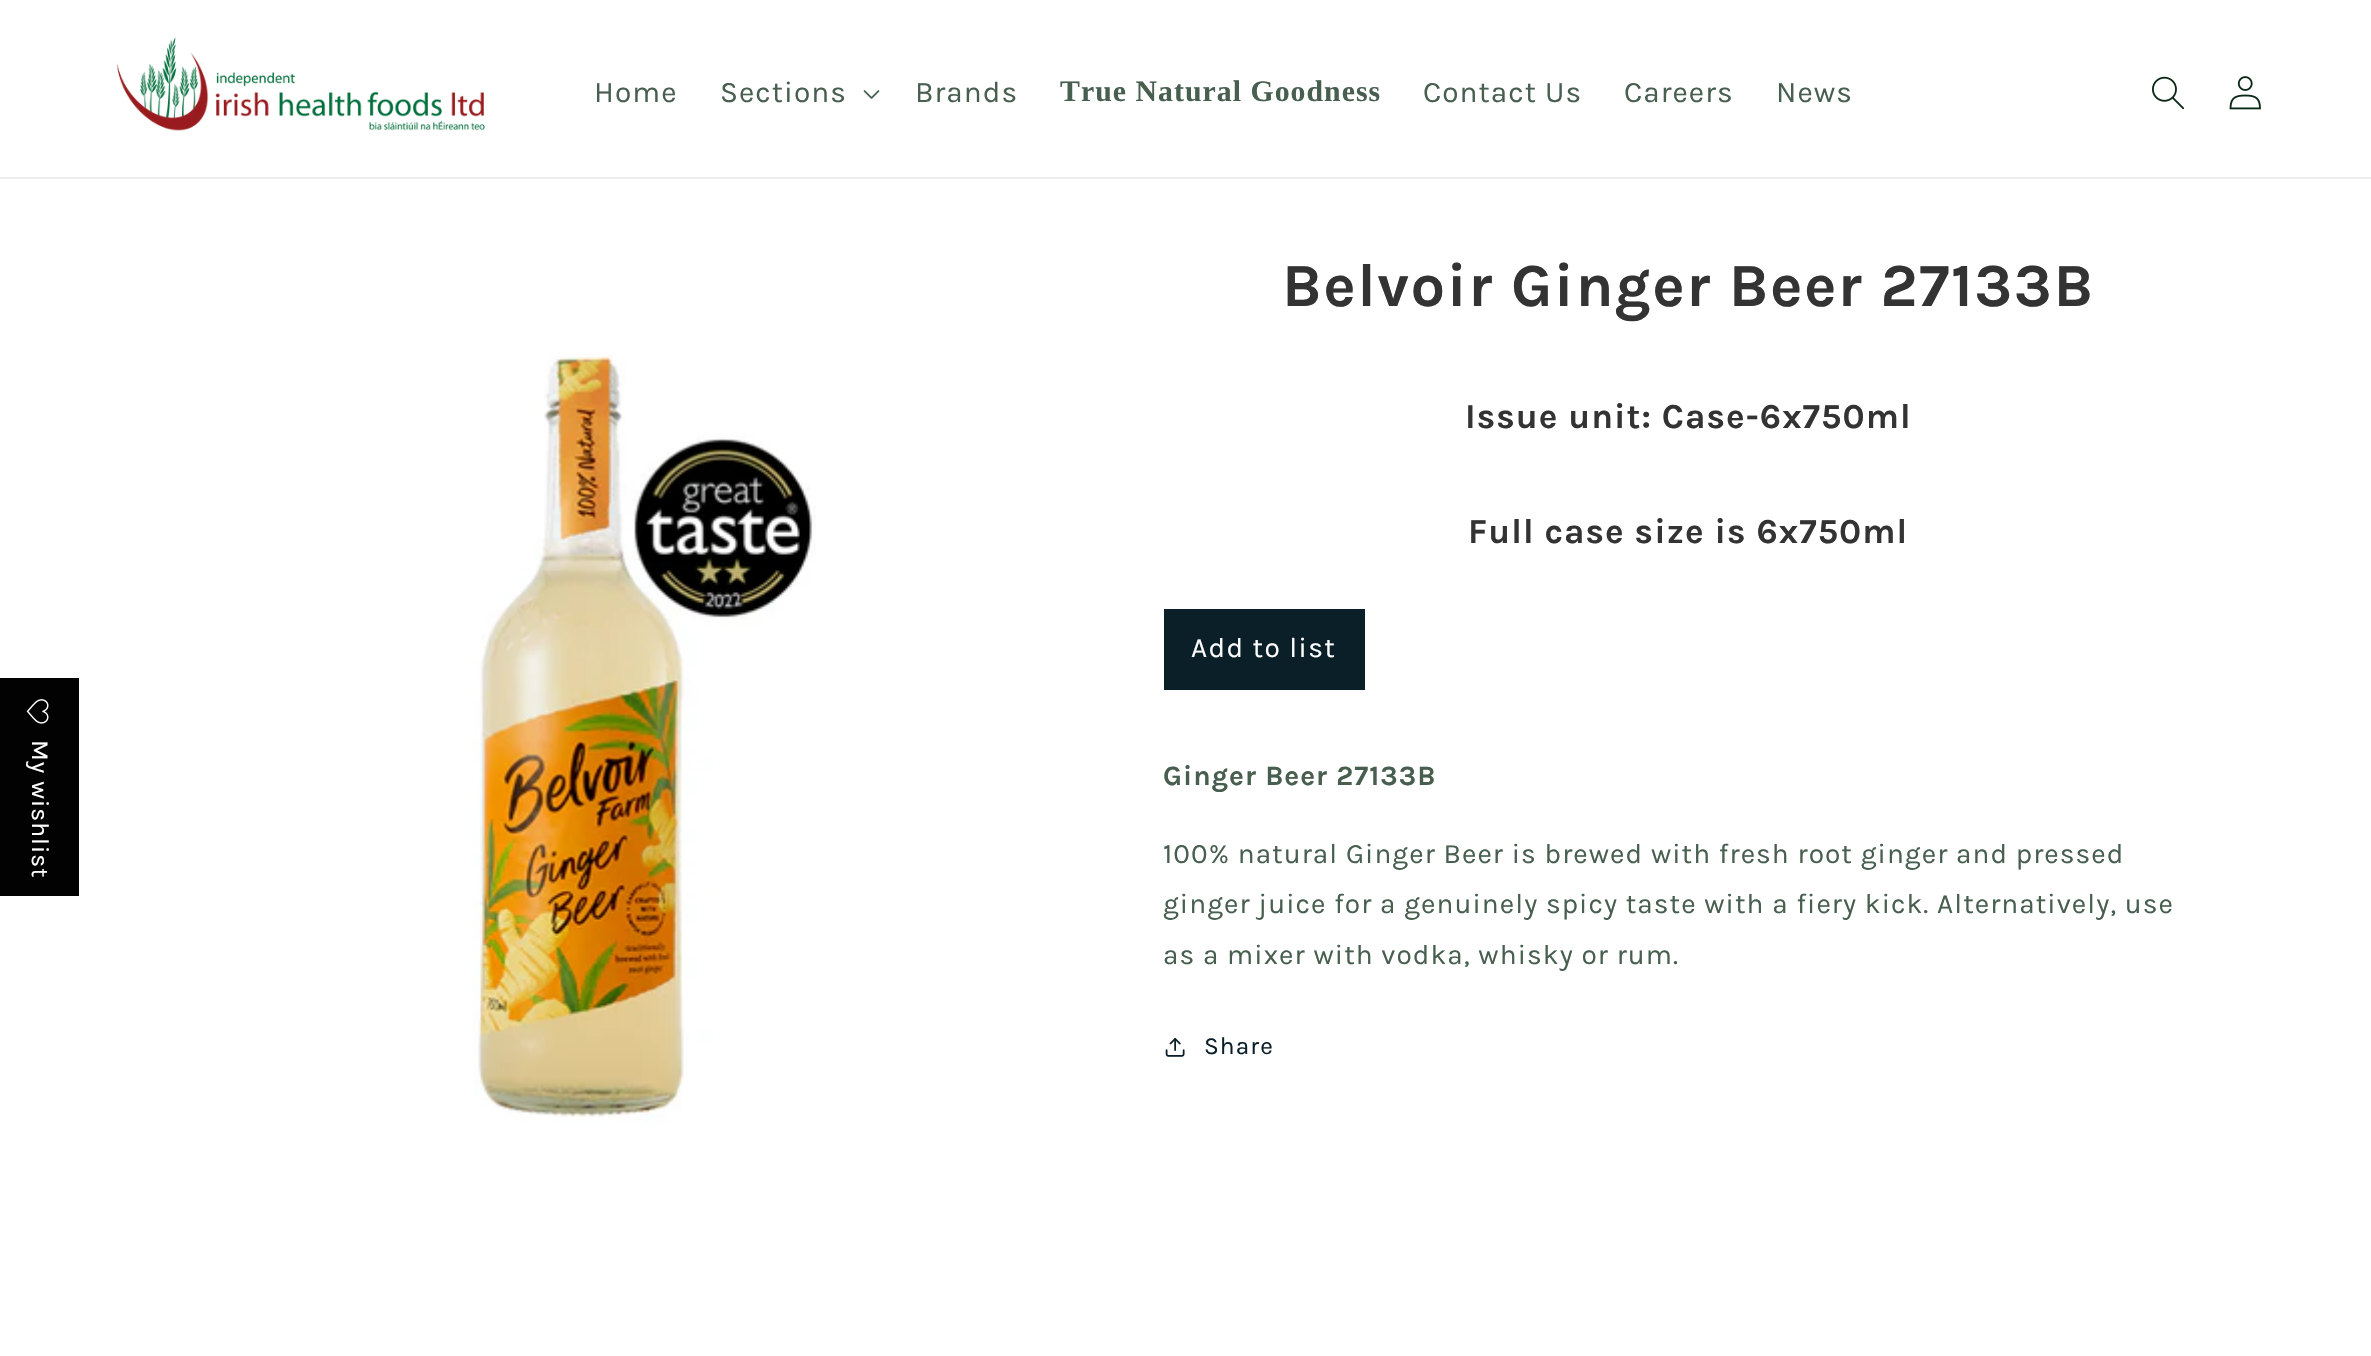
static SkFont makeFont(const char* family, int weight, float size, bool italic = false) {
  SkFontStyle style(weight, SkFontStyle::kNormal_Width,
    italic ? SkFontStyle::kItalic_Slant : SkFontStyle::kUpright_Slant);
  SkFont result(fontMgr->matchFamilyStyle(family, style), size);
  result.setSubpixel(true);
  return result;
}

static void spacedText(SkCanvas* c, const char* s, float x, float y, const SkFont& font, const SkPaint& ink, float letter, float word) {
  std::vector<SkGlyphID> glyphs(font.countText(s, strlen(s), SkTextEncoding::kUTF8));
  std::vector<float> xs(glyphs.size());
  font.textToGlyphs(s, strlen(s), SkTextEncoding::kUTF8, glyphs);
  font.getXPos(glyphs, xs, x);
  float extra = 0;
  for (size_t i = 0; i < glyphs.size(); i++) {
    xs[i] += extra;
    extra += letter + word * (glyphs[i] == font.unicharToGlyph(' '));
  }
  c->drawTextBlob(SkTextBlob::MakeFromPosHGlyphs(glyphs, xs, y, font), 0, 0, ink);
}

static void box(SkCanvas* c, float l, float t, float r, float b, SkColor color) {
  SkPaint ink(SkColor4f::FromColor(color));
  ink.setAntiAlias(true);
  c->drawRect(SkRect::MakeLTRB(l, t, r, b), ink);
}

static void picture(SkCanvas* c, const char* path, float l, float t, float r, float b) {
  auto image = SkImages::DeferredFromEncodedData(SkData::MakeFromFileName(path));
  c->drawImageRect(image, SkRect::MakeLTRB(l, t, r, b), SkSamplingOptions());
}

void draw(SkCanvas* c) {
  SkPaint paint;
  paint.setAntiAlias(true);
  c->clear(0xffffffff);
  box(c, 0, 177, 2371, 179, 0xffebeeec);
  picture(c, "img_01.png", 116, 37, 485, 131);
  SkFont face1 = makeFont("Karla", 400, 29.75f);
  paint.setColor(0xff485f50);
  spacedText(c, "Home", 594, 102, face1, paint, 1.05f, 0);
  spacedText(c, "Sections", 720, 102, face1, paint, 1.05f, 0);
  picture(c, "img_02.png", 863, 90, 880, 99);
  spacedText(c, "Brands", 915, 102, face1, paint, 1.05f, 0);
  SkFont face2 = makeFont("Liberation Serif", 700, 29.75f);
  spacedText(c, "True Natural Goodness", 1060, 101, face2, paint, 1.05f, 0);
  spacedText(c, "Contact Us", 1423, 102, face1, paint, 1.05f, 0);
  spacedText(c, "Careers", 1624, 102, face1, paint, 1.05f, 0);
  spacedText(c, "News", 1776, 102, face1, paint, 1.05f, 0);
  picture(c, "img_03.png", 2152, 76, 2184, 110);
  picture(c, "img_04.png", 2229, 76, 2261, 110);
  box(c, 0, 678, 79, 896, 0xff020202);
  picture(c, "img_05.png", 26, 699, 49, 724);
  SkFont face3 = makeFont("Karla", 400, 24.5f);
  paint.setColor(0xffffffff);
  c->save();
  c->rotate(90, 32, 740);
  spacedText(c, "My wishlist", 32, 740, face3, paint, 1.05f, 0);
  c->restore();
  picture(c, "img_06.png", 473, 354, 816, 1124);
  SkFont face4 = makeFont("Karla", 700, 61.25f);
  paint.setColor(0xff333333);
  spacedText(c, "Belvoir Ginger Beer 27133B", 1282, 306, face4, paint, 1.5f, 0);
  SkFont face5 = makeFont("Karla", 700, 35);
  spacedText(c, "Issue unit: Case-6x750ml", 1465, 428, face5, paint, 1.05f, 0);
  spacedText(c, "Full case size is 6x750ml", 1468, 543, face5, paint, 1.05f, 0);
  box(c, 1164, 609, 1365, 690, 0xff0b1f29);
  SkFont face6 = makeFont("Karla", 400, 28);
  paint.setColor(0xffffffff);
  spacedText(c, "Add to list", 1191, 657, face6, paint, 1.4f, 0);
  SkFont face7 = makeFont("Karla", 700, 28);
  paint.setColor(0xff485f50);
  spacedText(c, "Ginger Beer 27133B", 1163, 785, face7, paint, 1.05f, 0);
  spacedText(c, "100% natural Ginger Beer is brewed with fresh root ginger and pressed", 1163, 863, face6, paint, 1.05f, 0);
  spacedText(c, "ginger juice for a genuinely spicy taste with a fiery kick. Alternatively, use", 1163, 913, face6, paint, 1.05f, 0);
  spacedText(c, "as a mixer with vodka, whisky or rum.", 1163, 964, face6, paint, 1.05f, 0);
  picture(c, "img_07.png", 1165, 1038, 1185, 1057);
  paint.setColor(0xff0b1f29);
  spacedText(c, "Share", 1204, 1054, face3, paint, 1.05f, 0);
}
